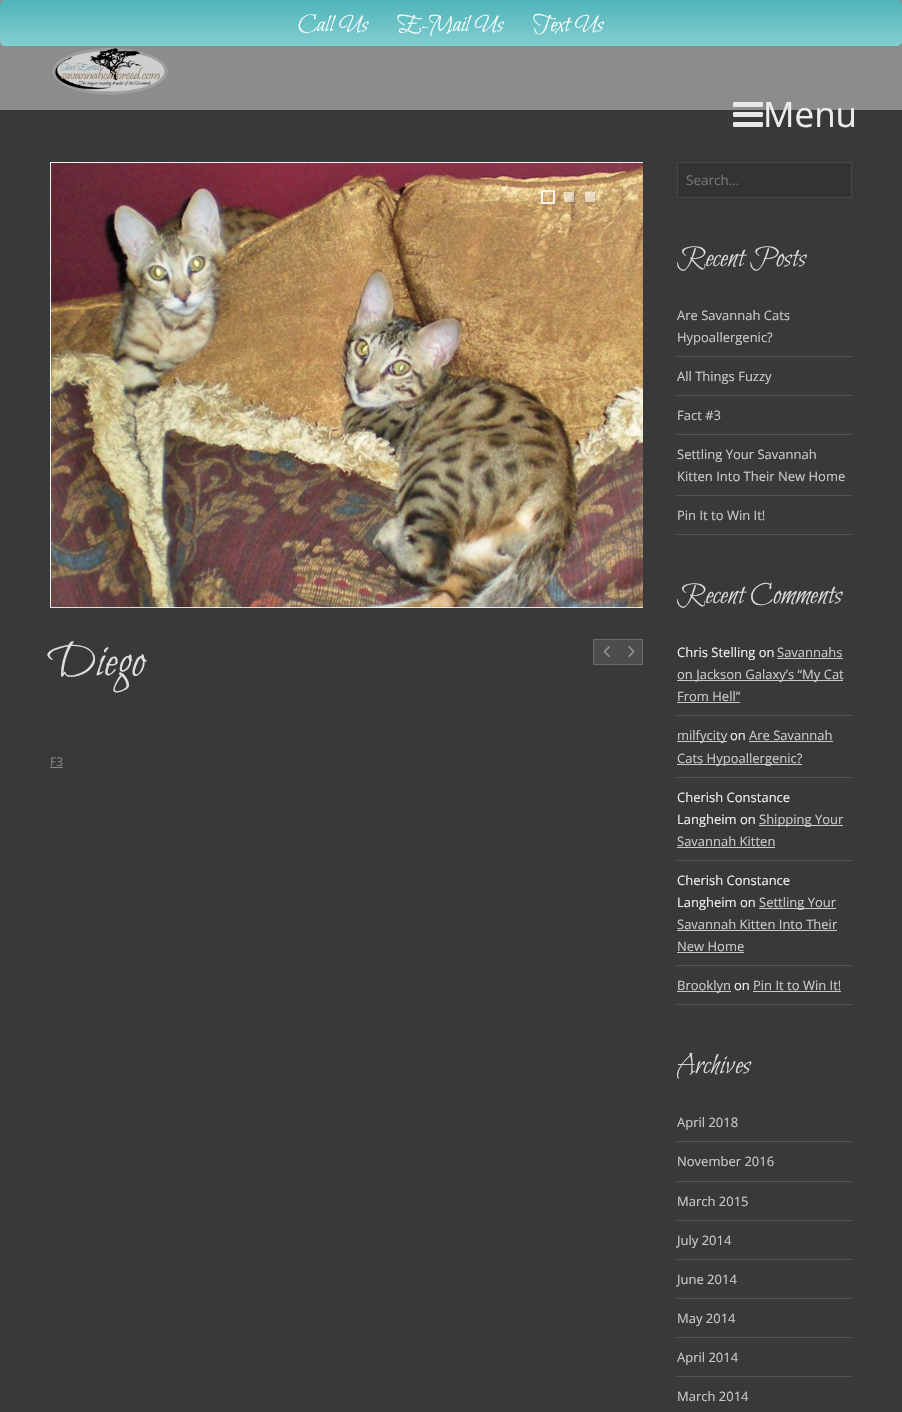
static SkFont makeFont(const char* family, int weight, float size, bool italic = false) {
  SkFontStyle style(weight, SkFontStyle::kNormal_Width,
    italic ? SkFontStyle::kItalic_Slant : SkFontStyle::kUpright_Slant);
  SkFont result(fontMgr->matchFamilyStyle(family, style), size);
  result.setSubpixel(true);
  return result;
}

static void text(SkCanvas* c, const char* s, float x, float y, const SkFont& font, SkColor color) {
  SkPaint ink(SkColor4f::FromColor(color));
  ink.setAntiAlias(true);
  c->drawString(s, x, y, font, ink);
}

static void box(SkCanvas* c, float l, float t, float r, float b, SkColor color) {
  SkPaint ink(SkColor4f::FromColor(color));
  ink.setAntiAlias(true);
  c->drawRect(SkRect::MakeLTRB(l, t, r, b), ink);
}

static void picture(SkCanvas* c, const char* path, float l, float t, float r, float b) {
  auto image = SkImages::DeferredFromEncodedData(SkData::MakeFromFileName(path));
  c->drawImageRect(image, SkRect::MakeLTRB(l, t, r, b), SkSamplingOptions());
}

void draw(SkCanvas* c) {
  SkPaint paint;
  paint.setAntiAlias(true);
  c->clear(0xff393939);
  box(c, 0, 0, 902, 110, 0xff8c8c8c);
  {
    const SkColor colors[] = {0xff4fb4b8, 0xff83ced1};
    const float stops[] = {0, 1};
    const SkPoint ends[] = {{451, 0}, {451, 46}};
    paint.setShader(SkGradientShader::MakeLinear(ends, colors, stops, 2, SkTileMode::kClamp));
    paint.setAlpha(255);
  }
  c->drawRoundRect(SkRect::MakeLTRB(0, 0, 902, 46), 5, 5, paint);
  SkFont face1 = makeFont("Bilbo Swash Caps", 400, 25);
  text(c, "Call Us", 298, 31, face1, 0xffffffff);
  text(c, "E-Mail Us", 398, 31, face1, 0xffffffff);
  text(c, "Text Us", 533, 31, face1, 0xffffffff);
  picture(c, "img_01.png", 52, 48, 168, 95);
  picture(c, "img_02.png", 733, 102, 763, 127);
  SkFont face2 = makeFont("Open Sans", 400, 35);
  text(c, "Menu", 763, 127, face2, 0xffededed);
  c->save();
  c->clipRect(SkRect::MakeLTRB(50, 162, 643, 608));
  paint.setStyle(SkPaint::kStroke_Style);
  paint.setStrokeWidth(1);
  paint.setShader(nullptr);
  paint.setColor(0xffffffff);
  c->drawRect(SkRect::MakeLTRB(50.5f, 162.5f, 644.5f, 607.5f), paint);
  c->restore();
  picture(c, "img_03.png", 50, 162, 643, 608);
  box(c, 541, 190, 555, 204, 0x0a000000);
  paint.setStrokeWidth(2);
  paint.setColor(0xd9ffffff);
  c->drawRect(SkRect::MakeLTRB(542, 191, 554, 203), paint);
  box(c, 564, 192, 574, 202, 0x8cffffff);
  paint.setStrokeWidth(1);
  paint.setColor(0x08000000);
  c->drawRect(SkRect::MakeLTRB(563.5f, 191.5f, 574.5f, 202.5f), paint);
  box(c, 585, 192, 595, 202, 0x8cffffff);
  c->drawRect(SkRect::MakeLTRB(584.5f, 191.5f, 595.5f, 202.5f), paint);
  SkFont face3 = makeFont("Bilbo Swash Caps", 400, 50);
  text(c, "Diego", 50, 675, face3, 0xffdddddd);
  box(c, 594, 640, 642, 664, 0xff4d4d4d);
  paint.setStyle(SkPaint::kFill_Style);
  paint.setColor(0xff6b6b6b);
  c->drawPath(SkPathBuilder().moveTo(593, 639).lineTo(618, 639).lineTo(618, 640).lineTo(594, 640).close().moveTo(618, 665).lineTo(593, 665).lineTo(594, 664).lineTo(618, 664).close().detach(), paint);
  paint.setColor(0x40ffffff);
  c->drawPath(SkPathBuilder().moveTo(593, 665).lineTo(593, 639).lineTo(594, 640).lineTo(594, 664).close().detach(), paint);
  picture(c, "img_04.png", 603, 646, 610, 657);
  paint.setColor(0xff6b6b6b);
  c->drawPath(SkPathBuilder().moveTo(618, 639).lineTo(643, 639).lineTo(642, 640).lineTo(618, 640).close().detach(), paint);
  paint.setColor(0x40ffffff);
  c->drawPath(SkPathBuilder().moveTo(643, 639).lineTo(643, 665).lineTo(642, 664).lineTo(642, 640).close().detach(), paint);
  c->drawPath(SkPathBuilder().moveTo(643, 665).lineTo(618, 665).lineTo(618, 664).lineTo(642, 664).close().detach(), paint);
  picture(c, "img_05.png", 628, 646, 635, 657);
  SkFont face4 = makeFont("Open Sans", 400, 12);
  text(c, "F3", 50, 766, face4, 0xff888888);
  box(c, 50, 767, 63, 768, 0xff888888);
  paint.setColor(0xff333333);
  c->drawRect(SkRect::MakeLTRB(677.5f, 162.5f, 851.5f, 197.5f), paint);
  paint.setStyle(SkPaint::kStroke_Style);
  paint.setColor(0xff494949);
  c->drawRect(SkRect::MakeLTRB(677.5f, 162.5f, 851.5f, 197.5f), paint);
  SkFont face5 = makeFont("Open Sans", 400, 13.5f);
  text(c, "Search...", 686, 185, face5, 0xff757575);
  SkFont face6 = makeFont("Bilbo Swash Caps", 400, 30);
  text(c, "Recent Posts", 677, 266, face6, 0xffdddddd);
  box(c, 677, 356, 852, 357, 0xff555555);
  SkFont face7 = makeFont("Open Sans", 400, 13);
  text(c, "Are Savannah Cats", 677, 320, face7, 0xffc9c9c9);
  text(c, "Hypoallergenic?", 677, 342, face7, 0xffc9c9c9);
  box(c, 677, 395, 852, 396, 0xff555555);
  text(c, "All Things Fuzzy", 677, 381, face7, 0xffc9c9c9);
  box(c, 677, 434, 852, 435, 0xff555555);
  text(c, "Fact #3", 677, 420, face7, 0xffc9c9c9);
  box(c, 677, 495, 852, 496, 0xff555555);
  text(c, "Settling Your Savannah", 677, 459, face7, 0xffc9c9c9);
  text(c, "Kitten Into Their New Home", 677, 481, face7, 0xffc9c9c9);
  box(c, 677, 534, 852, 535, 0xff555555);
  text(c, "Pin It to Win It!", 677, 520, face7, 0xffc9c9c9);
  text(c, "Recent Comments", 677, 603, face6, 0xffdddddd);
  box(c, 677, 715, 852, 716, 0xff555555);
  text(c, "Chris Stelling on", 677, 657, face7, 0xffededed);
  text(c, "Savannahs", 777, 657, face7, 0xffc9c9c9);
  box(c, 777, 658, 843, 659, 0xffc9c9c9);
  box(c, 677, 680, 843, 681, 0xffc9c9c9);
  text(c, "on Jackson Galaxy’s “My Cat", 677, 679, face7, 0xffc9c9c9);
  text(c, "From Hell”", 677, 701, face7, 0xffc9c9c9);
  box(c, 677, 702, 740, 703, 0xffc9c9c9);
  box(c, 677, 777, 852, 778, 0xff555555);
  box(c, 677, 741, 727, 742, 0xffc9c9c9);
  text(c, "milfycity", 677, 740, face7, 0xffc9c9c9);
  text(c, "on", 730, 740, face7, 0xffededed);
  text(c, "Are Savannah", 749, 740, face7, 0xffc9c9c9);
  box(c, 749, 741, 833, 742, 0xffc9c9c9);
  box(c, 677, 764, 802, 765, 0xffc9c9c9);
  text(c, "Cats Hypoallergenic?", 677, 763, face7, 0xffc9c9c9);
  box(c, 677, 860, 852, 861, 0xff555555);
  text(c, "Cherish Constance", 677, 802, face7, 0xffededed);
  text(c, "Langheim on", 677, 824, face7, 0xffededed);
  box(c, 759, 825, 843, 826, 0xffc9c9c9);
  text(c, "Shipping Your", 759, 824, face7, 0xffc9c9c9);
  text(c, "Savannah Kitten", 677, 846, face7, 0xffc9c9c9);
  box(c, 677, 847, 775, 848, 0xffc9c9c9);
  box(c, 677, 965, 852, 966, 0xff555555);
  text(c, "Cherish Constance", 677, 885, face7, 0xffededed);
  text(c, "Langheim on", 677, 907, face7, 0xffededed);
  box(c, 759, 908, 836, 909, 0xffc9c9c9);
  text(c, "Settling Your", 759, 907, face7, 0xffc9c9c9);
  text(c, "Savannah Kitten Into Their", 677, 929, face7, 0xffc9c9c9);
  box(c, 677, 930, 837, 931, 0xffc9c9c9);
  text(c, "New Home", 677, 951, face7, 0xffc9c9c9);
  box(c, 677, 952, 744, 953, 0xffc9c9c9);
  box(c, 677, 1004, 852, 1005, 0xff555555);
  box(c, 677, 991, 731, 992, 0xffc9c9c9);
  text(c, "Brooklyn", 677, 990, face7, 0xffc9c9c9);
  text(c, "on", 734, 990, face7, 0xffededed);
  text(c, "Pin It to Win It!", 753, 990, face7, 0xffc9c9c9);
  box(c, 753, 991, 841, 992, 0xffc9c9c9);
  text(c, "Archives", 677, 1073, face6, 0xffdddddd);
  box(c, 677, 1141, 852, 1142, 0xff555555);
  text(c, "April 2018", 677, 1127, face7, 0xffc9c9c9);
  box(c, 677, 1181, 852, 1182, 0xff555555);
  text(c, "November 2016", 677, 1166, face7, 0xffc9c9c9);
  box(c, 677, 1220, 852, 1221, 0xff555555);
  text(c, "March 2015", 677, 1206, face7, 0xffc9c9c9);
  box(c, 677, 1259, 852, 1260, 0xff555555);
  text(c, "July 2014", 677, 1245, face7, 0xffc9c9c9);
  box(c, 677, 1298, 852, 1299, 0xff555555);
  text(c, "June 2014", 677, 1284, face7, 0xffc9c9c9);
  box(c, 677, 1337, 852, 1338, 0xff555555);
  text(c, "May 2014", 677, 1323, face7, 0xffc9c9c9);
  box(c, 677, 1376, 852, 1377, 0xff555555);
  text(c, "April 2014", 677, 1362, face7, 0xffc9c9c9);
  text(c, "March 2014", 677, 1401, face7, 0xffc9c9c9);
}
